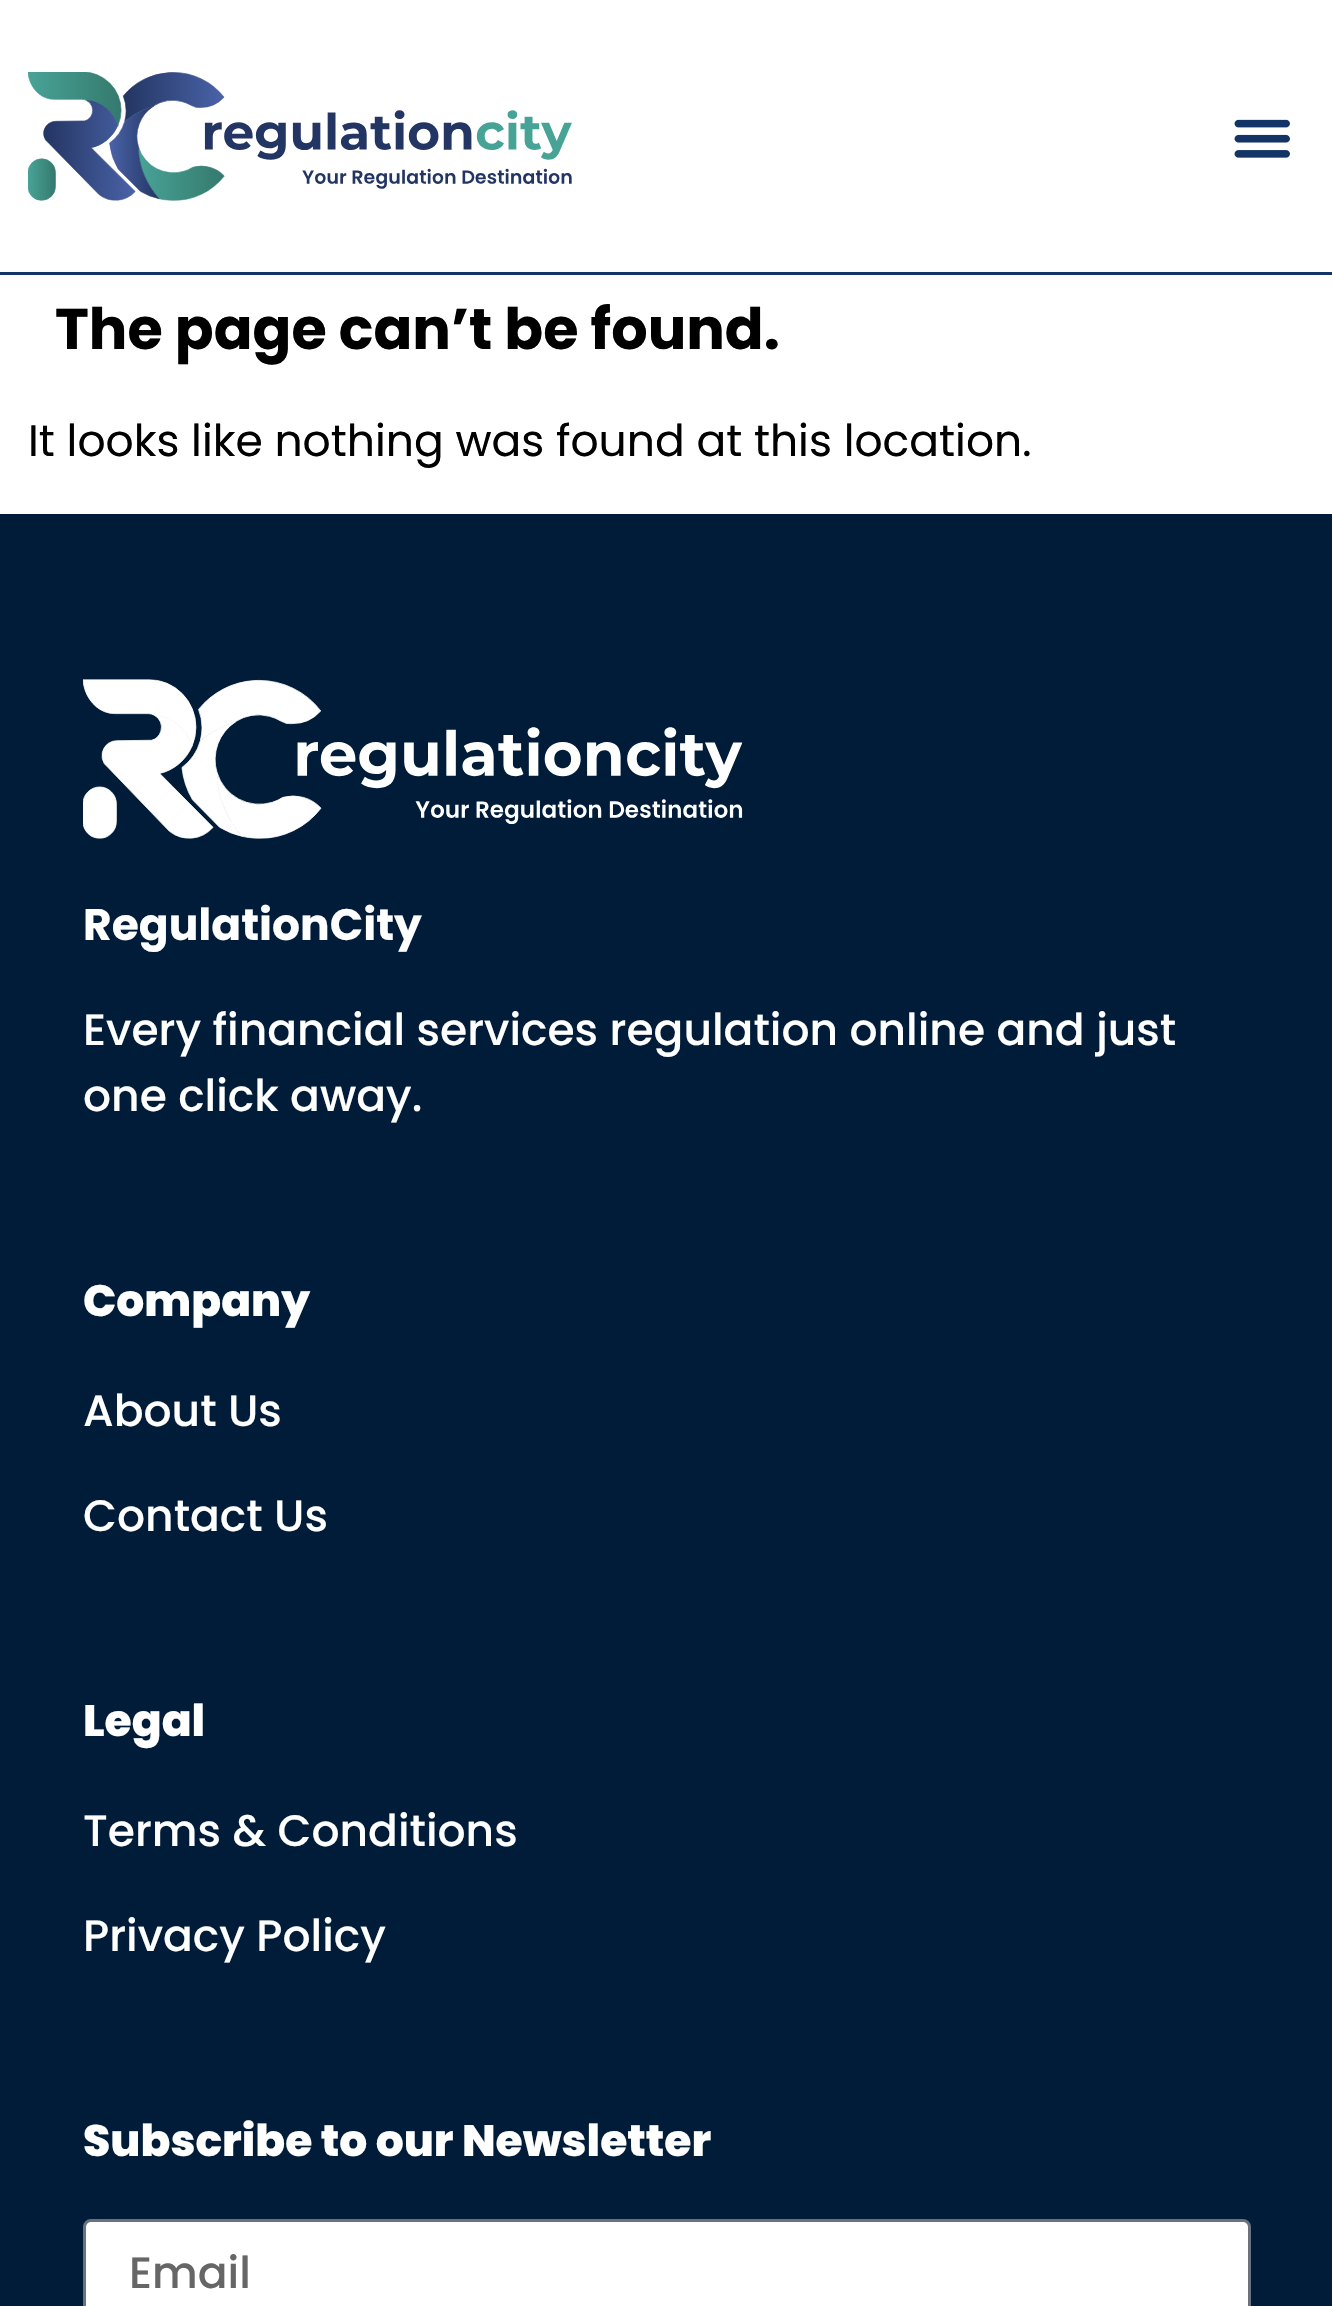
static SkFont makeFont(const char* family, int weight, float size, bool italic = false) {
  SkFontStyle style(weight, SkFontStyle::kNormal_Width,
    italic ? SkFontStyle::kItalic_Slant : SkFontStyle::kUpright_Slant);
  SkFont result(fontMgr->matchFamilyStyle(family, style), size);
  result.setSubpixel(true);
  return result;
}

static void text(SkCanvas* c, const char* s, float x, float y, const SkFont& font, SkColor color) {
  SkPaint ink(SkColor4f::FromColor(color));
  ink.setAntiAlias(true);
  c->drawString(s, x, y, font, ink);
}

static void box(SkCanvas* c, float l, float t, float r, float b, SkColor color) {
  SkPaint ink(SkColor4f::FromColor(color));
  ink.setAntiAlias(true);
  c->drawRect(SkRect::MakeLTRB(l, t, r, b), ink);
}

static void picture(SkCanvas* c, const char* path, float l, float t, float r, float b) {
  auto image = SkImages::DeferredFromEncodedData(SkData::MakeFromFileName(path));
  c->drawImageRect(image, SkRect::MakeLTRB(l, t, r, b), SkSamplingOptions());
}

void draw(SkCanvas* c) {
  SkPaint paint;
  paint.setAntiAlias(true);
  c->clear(0xffffffff);
  box(c, 0, 272, 1332, 275, 0xff123466);
  picture(c, "img_01.png", 28, 72, 572, 201);
  picture(c, "img_02.png", 1234, 119, 1290, 158);
  SkFont face1 = makeFont("Poppins", 700, 57.25f);
  text(c, "The page can’t be found.", 55, 349, face1, 0xff000000);
  SkFont face2 = makeFont("Poppins", 400, 44);
  text(c, "It looks like nothing was found at this location.", 28, 456, face2, 0xff000000);
  box(c, 0, 514, 1332, 2306, 0xff001c38);
  picture(c, "img_03.png", 83, 679, 743, 839);
  SkFont face3 = makeFont("Poppins", 700, 44);
  text(c, "RegulationCity", 83, 940, face3, 0xffffffff);
  SkFont face4 = makeFont("Poppins", 500, 44);
  text(c, "Every financial services regulation online and just", 83, 1045, face4, 0xffffffff);
  text(c, "one click away.", 83, 1111, face4, 0xffffffff);
  SkFont face5 = makeFont("Poppins", 800, 44);
  text(c, "Company", 83, 1316, face5, 0xffffffff);
  text(c, "About Us", 83, 1426, face4, 0xffffffff);
  text(c, "Contact Us", 83, 1531, face4, 0xffffffff);
  text(c, "Legal", 83, 1736, face5, 0xffffffff);
  text(c, "Terms & Conditions", 83, 1846, face4, 0xffffffff);
  text(c, "Privacy Policy", 83, 1951, face4, 0xffffffff);
  text(c, "Subscribe to our Newsletter", 83, 2156, face5, 0xffffffff);
  paint.setColor(0xffffffff);
  c->drawRoundRect(SkRect::MakeLTRB(84.5f, 2220.5f, 1249.5f, 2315.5f), 6.5f, 6.5f, paint);
  paint.setStyle(SkPaint::kStroke_Style);
  paint.setStrokeWidth(3);
  paint.setColor(0xff69727d);
  c->drawRoundRect(SkRect::MakeLTRB(84.5f, 2220.5f, 1249.5f, 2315.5f), 6.5f, 6.5f, paint);
  text(c, "Email", 129, 2288, face4, 0xff666666);
}
